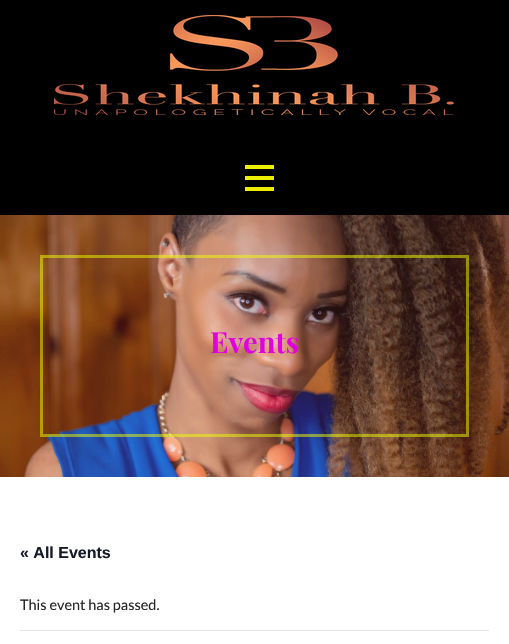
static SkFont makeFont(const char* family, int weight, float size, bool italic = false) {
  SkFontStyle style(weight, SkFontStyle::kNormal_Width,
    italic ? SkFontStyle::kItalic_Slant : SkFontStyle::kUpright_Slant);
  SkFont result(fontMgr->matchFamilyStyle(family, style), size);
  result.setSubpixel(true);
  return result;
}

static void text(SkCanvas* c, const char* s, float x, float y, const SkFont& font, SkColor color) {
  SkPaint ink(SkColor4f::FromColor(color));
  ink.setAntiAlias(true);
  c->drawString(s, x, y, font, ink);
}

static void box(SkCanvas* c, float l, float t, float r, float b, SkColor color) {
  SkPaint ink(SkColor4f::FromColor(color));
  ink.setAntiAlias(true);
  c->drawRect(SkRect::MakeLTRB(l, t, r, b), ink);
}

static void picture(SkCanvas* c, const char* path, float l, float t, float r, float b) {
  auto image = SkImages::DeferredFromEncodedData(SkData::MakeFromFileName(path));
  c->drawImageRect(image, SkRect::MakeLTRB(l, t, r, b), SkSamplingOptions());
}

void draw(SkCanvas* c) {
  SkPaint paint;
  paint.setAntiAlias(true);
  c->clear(0xffffffff);
  box(c, 0, 0, 509, 215, 0xff000000);
  picture(c, "img_01.png", 54, 15, 454, 115);
  box(c, 245, 165, 274, 169, 0xffeded00);
  box(c, 245, 176, 274, 180, 0xffeded00);
  box(c, 245, 187, 274, 191, 0xffeded00);
  picture(c, "img_02.png", 0, 215, 509, 477);
  paint.setStyle(SkPaint::kStroke_Style);
  paint.setStrokeWidth(3);
  paint.setColor(0x80eeff00);
  c->drawRect(SkRect::MakeLTRB(41.5f, 256.5f, 467.5f, 435.5f), paint);
  SkFont face1 = makeFont("Playfair Display", 700, 29);
  text(c, "Events", 210, 353, face1, 0xffe200e2);
  SkFont face2 = makeFont("Liberation Sans", 700, 16);
  text(c, "« All Events", 20, 558, face2, 0xff141827);
  box(c, 20, 630, 489, 631, 0xffe4e4e4);
  SkFont face3 = makeFont("Lato", 400, 14.5f);
  text(c, "This event has passed.", 20, 610, face3, 0xff252525);
}
